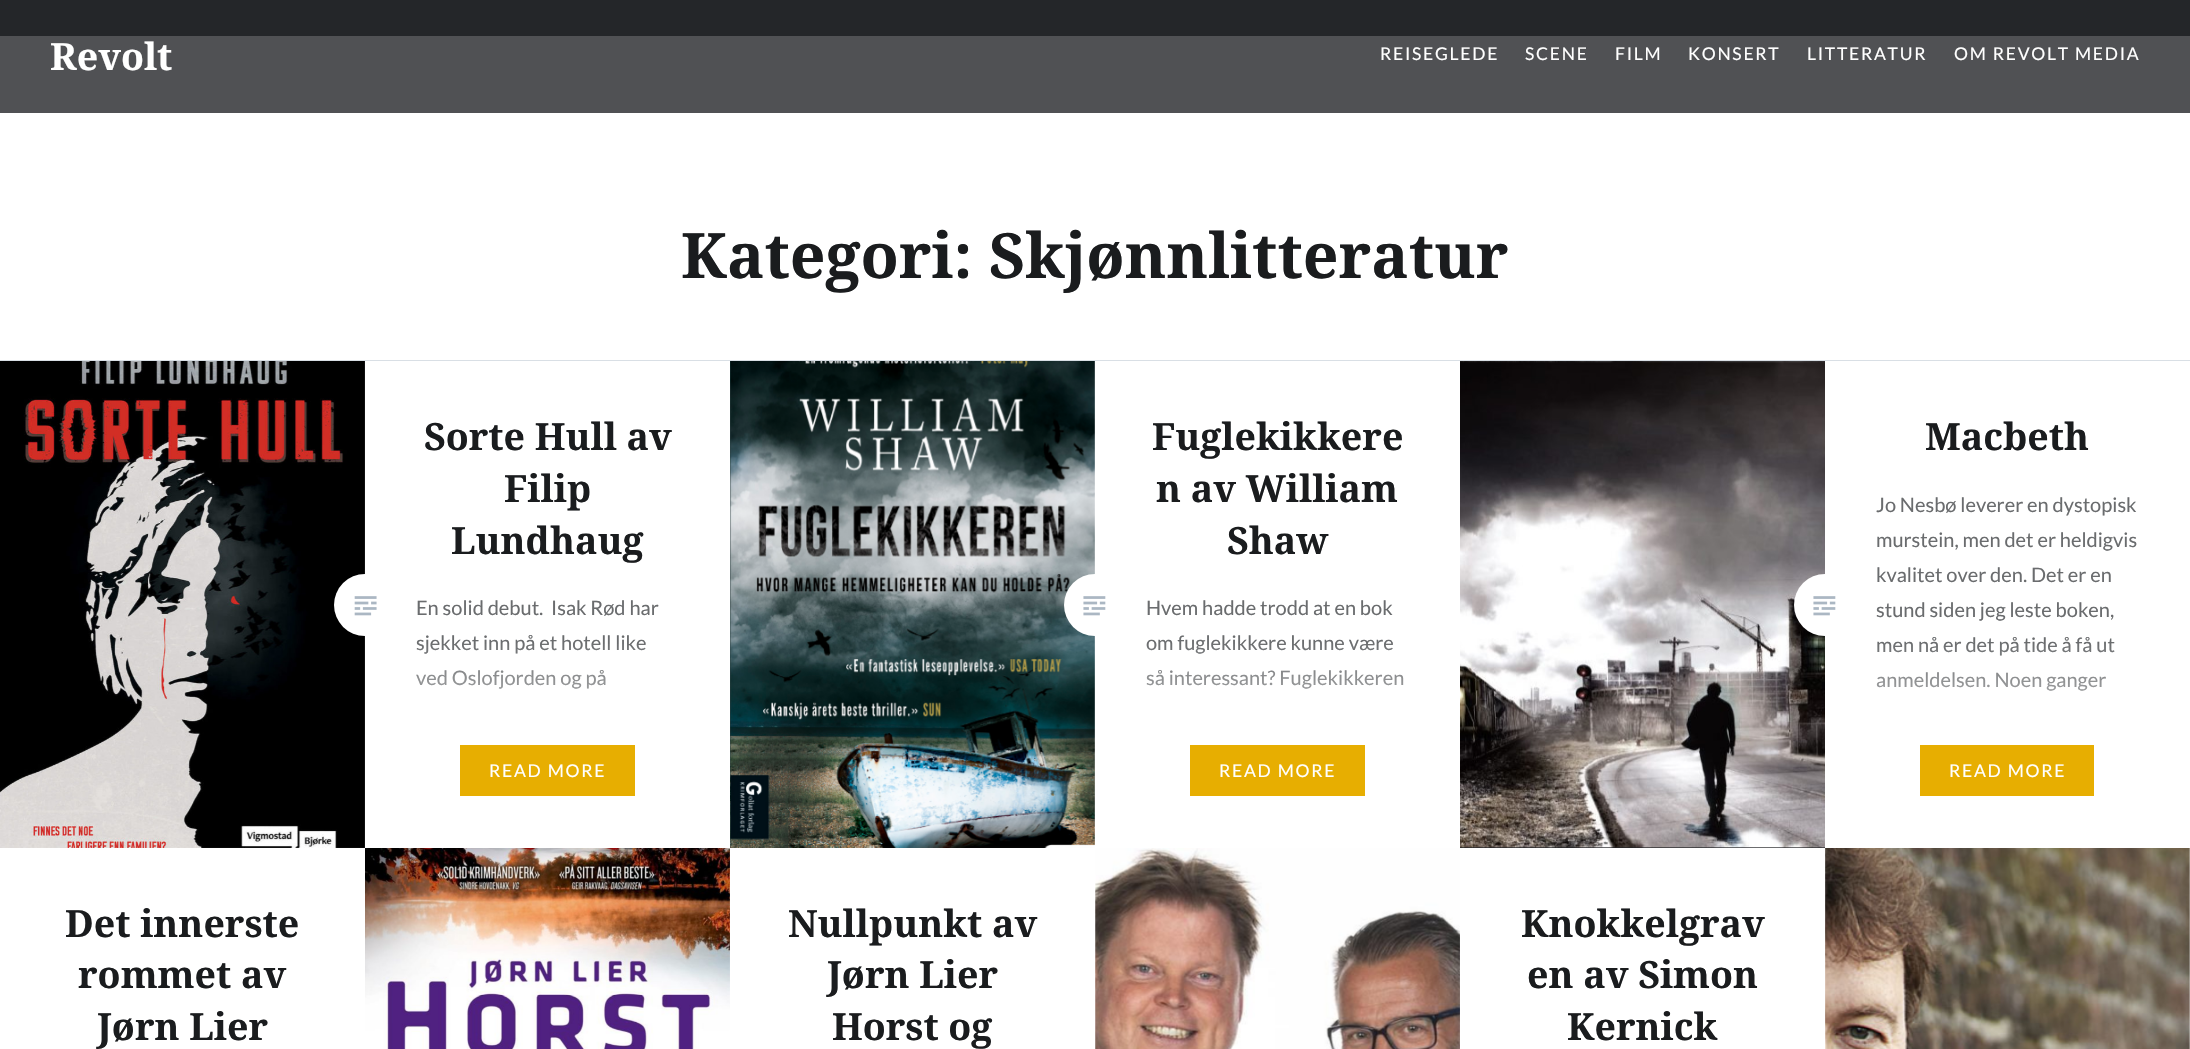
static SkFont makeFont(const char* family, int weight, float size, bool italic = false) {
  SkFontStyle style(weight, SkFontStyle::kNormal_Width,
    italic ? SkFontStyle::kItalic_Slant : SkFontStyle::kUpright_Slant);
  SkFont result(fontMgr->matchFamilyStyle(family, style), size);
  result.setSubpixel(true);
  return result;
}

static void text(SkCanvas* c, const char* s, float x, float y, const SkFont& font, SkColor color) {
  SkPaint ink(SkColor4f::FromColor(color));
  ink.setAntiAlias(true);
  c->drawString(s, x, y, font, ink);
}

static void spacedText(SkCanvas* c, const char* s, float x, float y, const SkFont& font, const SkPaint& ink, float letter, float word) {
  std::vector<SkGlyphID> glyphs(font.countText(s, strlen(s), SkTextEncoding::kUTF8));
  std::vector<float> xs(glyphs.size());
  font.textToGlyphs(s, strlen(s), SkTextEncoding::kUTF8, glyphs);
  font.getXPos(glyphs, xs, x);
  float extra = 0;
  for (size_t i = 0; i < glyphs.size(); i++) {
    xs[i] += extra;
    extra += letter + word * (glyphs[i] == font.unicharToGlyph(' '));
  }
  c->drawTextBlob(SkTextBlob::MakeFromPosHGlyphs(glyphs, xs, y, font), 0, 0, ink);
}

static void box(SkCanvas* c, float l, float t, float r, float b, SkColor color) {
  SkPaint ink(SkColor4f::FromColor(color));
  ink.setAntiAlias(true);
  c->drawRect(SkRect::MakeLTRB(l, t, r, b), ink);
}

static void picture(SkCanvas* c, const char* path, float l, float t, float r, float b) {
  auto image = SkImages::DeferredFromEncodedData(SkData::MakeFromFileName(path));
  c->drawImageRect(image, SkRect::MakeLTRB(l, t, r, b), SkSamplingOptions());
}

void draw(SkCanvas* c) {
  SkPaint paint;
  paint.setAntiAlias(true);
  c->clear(0xff242629);
  box(c, 0, 113, 2190, 1049, 0xffffffff);
  box(c, 0, 36, 2190, 113, 0xff505154);
  SkFont face1 = makeFont("Noto Serif", 700, 37.5f);
  text(c, "Revolt", 50, 70, face1, 0xffffffff);
  SkFont face2 = makeFont("Lato", 400, 17.5f);
  paint.setColor(0xffffffff);
  spacedText(c, "REISEGLEDE", 1380, 60, face2, paint, 1.75f, 0);
  spacedText(c, "SCENE", 1525, 60, face2, paint, 1.75f, 0);
  spacedText(c, "FILM", 1615, 60, face2, paint, 1.75f, 0);
  spacedText(c, "KONSERT", 1688, 60, face2, paint, 1.75f, 0);
  spacedText(c, "LITTERATUR", 1807, 60, face2, paint, 1.75f, 0);
  spacedText(c, "OM REVOLT MEDIA", 1954, 60, face2, paint, 1.75f, 0);
  box(c, 0, 360, 2190, 361, 0xffd9dfe5);
  SkFont face3 = makeFont("Noto Serif", 700, 62.5f);
  text(c, "Kategori: Skjønnlitteratur", 681, 278, face3, 0xff1a1c1e);
  picture(c, "img_01.png", 0, 361, 365, 848);
  c->drawCircle(365, 605, 31, paint);
  text(c, "Sorte Hull av", 424, 450, face1, 0xff1a1c1e);
  text(c, "Filip", 504, 502, face1, 0xff1a1c1e);
  text(c, "Lundhaug", 451, 554, face1, 0xff1a1c1e);
  SkFont face4 = makeFont("Lato", 400, 20);
  text(c, "En solid debut.  Isak Rød har", 416, 615, face4, 0xff6a6c6e);
  text(c, "sjekket inn på et hotell like", 416, 650, face4, 0xff6a6c6e);
  text(c, "ved Oslofjorden og på", 416, 685, face4, 0xff6a6c6e);
  box(c, 460, 745, 635, 796, 0xffe7ae01);
  spacedText(c, "READ MORE", 489, 777, face2, paint, 1.75f, 0);
  {
    const SkColor colors[] = {0x00ffffff, 0xffffffff};
    const float stops[] = {0, 1};
    const SkPoint ends[] = {{548, 641}, {548, 796}};
    paint.setShader(SkGradientShader::MakeLinear(ends, colors, stops, 2, SkTileMode::kClamp));
    paint.setAlpha(255);
  }
  c->drawRect(SkRect::MakeLTRB(416, 644, 646, 689), paint);
  picture(c, "img_02.png", 354, 596, 377, 616);
  picture(c, "img_03.png", 730, 361, 1095, 848);
  paint.setShader(nullptr);
  paint.setColor(0xffffffff);
  c->drawCircle(1095, 605, 31, paint);
  text(c, "Fuglekikkere", 1152, 450, face1, 0xff1a1c1e);
  text(c, "n av William", 1156, 502, face1, 0xff1a1c1e);
  text(c, "Shaw", 1227, 554, face1, 0xff1a1c1e);
  text(c, "Hvem hadde trodd at en bok", 1146, 615, face4, 0xff6a6c6e);
  text(c, "om fuglekikkere kunne være", 1146, 650, face4, 0xff6a6c6e);
  text(c, "så interessant? Fuglekikkeren", 1146, 685, face4, 0xff6a6c6e);
  box(c, 1190, 745, 1365, 796, 0xffe7ae01);
  spacedText(c, "READ MORE", 1219, 777, face2, paint, 1.75f, 0);
  {
    const SkColor colors[] = {0x00ffffff, 0xffffffff};
    const float stops[] = {0, 1};
    const SkPoint ends[] = {{1278, 641}, {1278, 796}};
    paint.setShader(SkGradientShader::MakeLinear(ends, colors, stops, 2, SkTileMode::kClamp));
    paint.setAlpha(255);
  }
  c->drawRect(SkRect::MakeLTRB(1146, 644, 1404, 689), paint);
  picture(c, "img_04.png", 1083, 596, 1106, 616);
  box(c, 1460, 361, 1825, 848, 0xff242629);
  picture(c, "img_05.png", 1460, 361, 1825, 848);
  paint.setShader(nullptr);
  paint.setColor(0xffffffff);
  c->drawCircle(1825, 605, 31, paint);
  text(c, "Macbeth", 1925, 450, face1, 0xff1a1c1e);
  text(c, "Jo Nesbø leverer en dystopisk", 1876, 512, face4, 0xff6a6c6e);
  text(c, "murstein, men det er heldigvis", 1876, 547, face4, 0xff6a6c6e);
  text(c, "kvalitet over den. Det er en", 1876, 582, face4, 0xff6a6c6e);
  text(c, "stund siden jeg leste boken,", 1876, 617, face4, 0xff6a6c6e);
  text(c, "men nå er det på tide å få ut", 1876, 652, face4, 0xff6a6c6e);
  text(c, "anmeldelsen. Noen ganger", 1876, 687, face4, 0xff6a6c6e);
  box(c, 1920, 745, 2094, 796, 0xffe7ae01);
  spacedText(c, "READ MORE", 1949, 777, face2, paint, 1.75f, 0);
  {
    const SkColor colors[] = {0x00ffffff, 0xffffffff};
    const float stops[] = {0, 1};
    const SkPoint ends[] = {{2008, 641}, {2008, 796}};
    paint.setShader(SkGradientShader::MakeLinear(ends, colors, stops, 2, SkTileMode::kClamp));
    paint.setAlpha(255);
  }
  c->drawRect(SkRect::MakeLTRB(1877, 644, 2114, 691), paint);
  picture(c, "img_04.png", 1813, 596, 1836, 616);
  text(c, "Det innerste", 65, 937, face1, 0xff1a1c1e);
  text(c, "rommet av", 78, 988, face1, 0xff1a1c1e);
  text(c, "Jørn Lier", 97, 1040, face1, 0xff1a1c1e);
  picture(c, "img_06.png", 365, 848, 730, 1049);
  text(c, "Nullpunkt av", 788, 937, face1, 0xff1a1c1e);
  text(c, "Jørn Lier", 827, 988, face1, 0xff1a1c1e);
  text(c, "Horst og", 832, 1040, face1, 0xff1a1c1e);
  picture(c, "img_07.png", 1095, 848, 1460, 1049);
  text(c, "Knokkelgrav", 1521, 937, face1, 0xff1a1c1e);
  text(c, "en av Simon", 1527, 988, face1, 0xff1a1c1e);
  text(c, "Kernick", 1567, 1040, face1, 0xff1a1c1e);
  picture(c, "img_08.png", 1825, 848, 2190, 1049);
}
